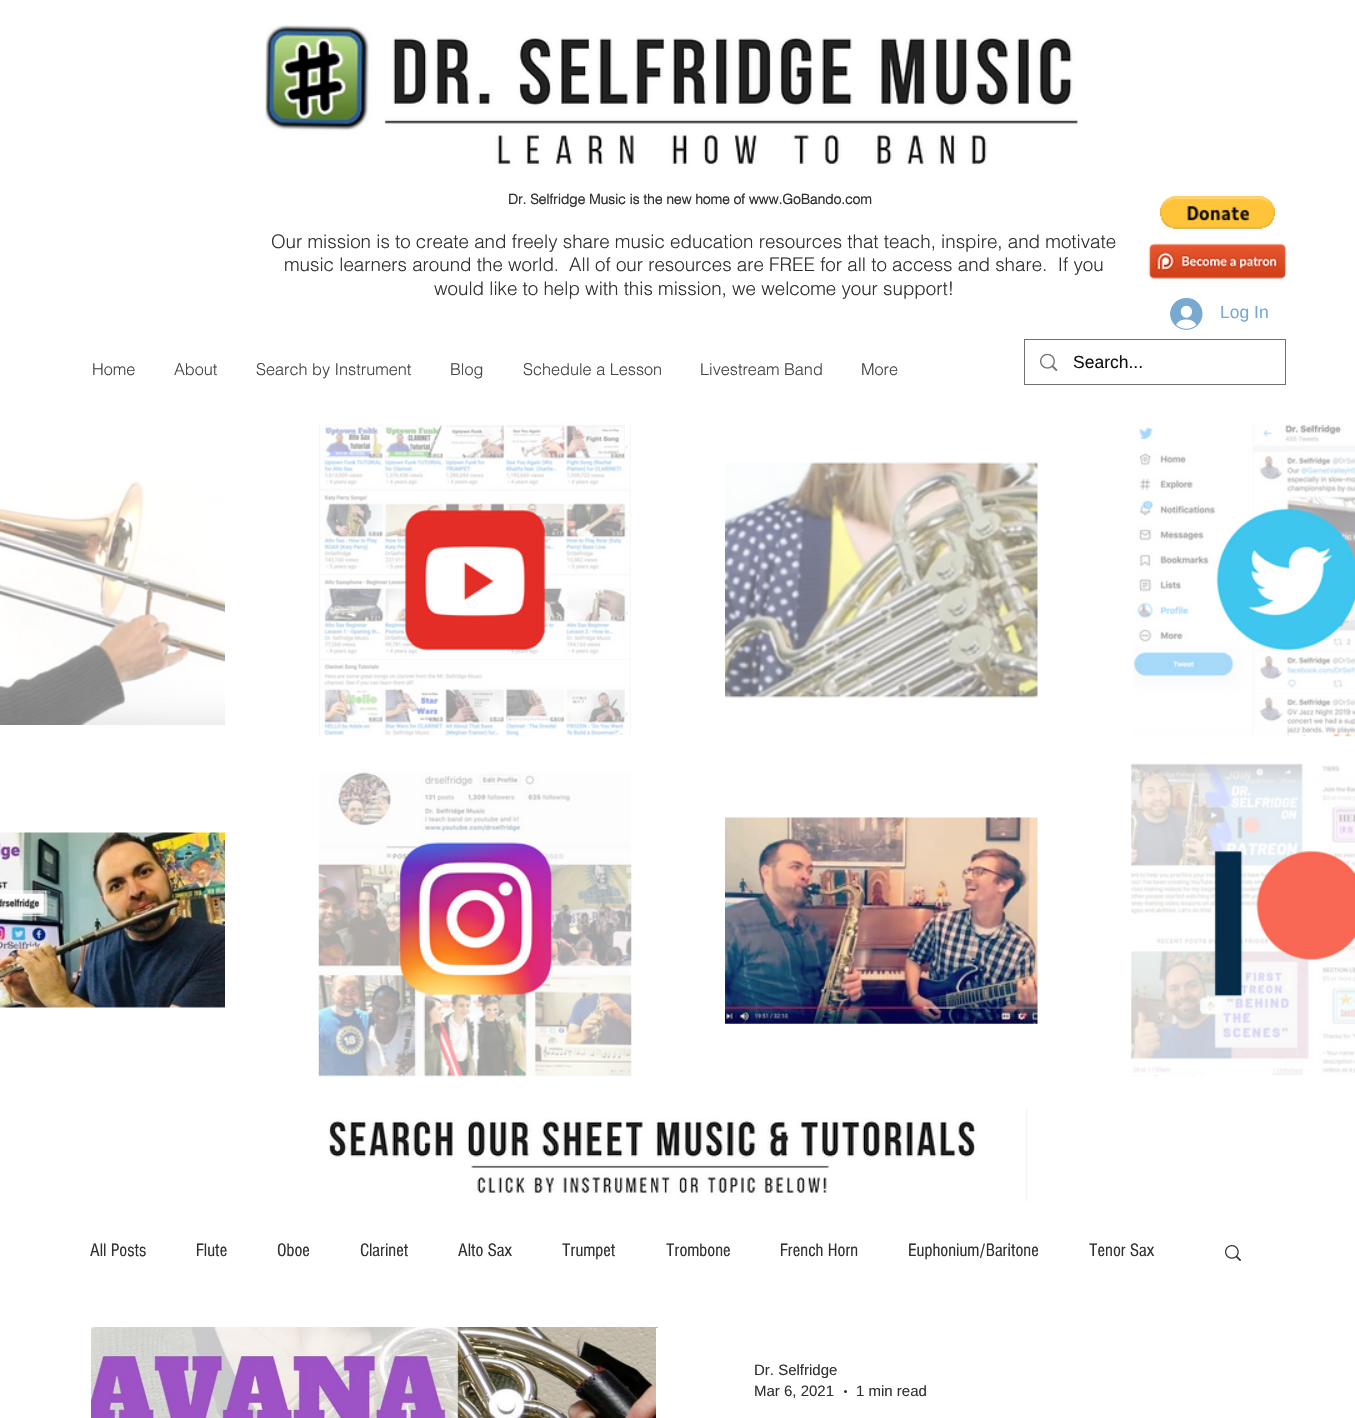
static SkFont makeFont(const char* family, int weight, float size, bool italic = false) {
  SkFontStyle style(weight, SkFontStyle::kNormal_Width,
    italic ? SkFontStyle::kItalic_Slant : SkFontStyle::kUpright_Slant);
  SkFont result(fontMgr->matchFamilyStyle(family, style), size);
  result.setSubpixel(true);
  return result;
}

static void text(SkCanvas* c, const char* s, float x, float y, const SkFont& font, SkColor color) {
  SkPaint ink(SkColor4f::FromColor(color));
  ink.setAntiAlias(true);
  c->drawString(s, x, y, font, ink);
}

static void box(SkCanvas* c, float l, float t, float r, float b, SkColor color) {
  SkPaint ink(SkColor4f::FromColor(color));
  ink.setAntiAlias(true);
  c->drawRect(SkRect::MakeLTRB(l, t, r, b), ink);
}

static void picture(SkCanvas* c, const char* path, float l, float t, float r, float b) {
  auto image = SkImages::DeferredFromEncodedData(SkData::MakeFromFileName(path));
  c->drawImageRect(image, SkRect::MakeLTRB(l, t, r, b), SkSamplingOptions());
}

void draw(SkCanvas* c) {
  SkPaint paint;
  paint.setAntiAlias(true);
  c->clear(0xffffffff);
  picture(c, "img_01.png", 265, 25, 1078, 166);
  SkFont face1 = makeFont("helvetica", 700, 13.75f);
  text(c, "Dr. Selfridge Music is the new home of www.GoBando.com", 508, 204, face1, 0xff323132);
  picture(c, "img_02.png", 1160, 196, 1275, 229);
  SkFont face2 = makeFont("helvetica", 300, 18.75f);
  text(c, "Our mission is to create and freely share music education resources that teach, inspire, and motivate", 271, 248, face2, 0xff323132);
  text(c, "music learners around the world.", 284, 271, face2, 0xff323132);
  text(c, "All of our resources are FREE for all to access and share.  If you", 569, 271, face2, 0xff323132);
  text(c, "would like to help with this mission, we welcome your support!", 434, 295, face2, 0xff323132);
  picture(c, "img_03.png", 1148, 243, 1287, 279);
  picture(c, "img_04.png", 1170, 298, 1203, 330);
  SkFont face3 = makeFont("Liberation Sans", 400, 17.5f);
  text(c, "Log In", 1220, 318, face3, 0xff78aad1);
  SkFont face4 = makeFont("helvetica", 300, 16.25f);
  text(c, "Home", 92, 375, face4, 0xff444444);
  text(c, "About", 174, 375, face4, 0xff444444);
  text(c, "Search by Instrument", 256, 375, face4, 0xff444444);
  text(c, "Blog", 450, 375, face4, 0xff444444);
  text(c, "Schedule a Lesson", 523, 375, face4, 0xff444444);
  text(c, "Livestream Band", 700, 375, face4, 0xff444444);
  text(c, "More", 861, 375, face4, 0xff444444);
  paint.setStyle(SkPaint::kStroke_Style);
  paint.setStrokeWidth(1);
  paint.setColor(0xff717171);
  c->drawRect(SkRect::MakeLTRB(1024.5f, 339.5f, 1285.5f, 384.5f), paint);
  picture(c, "img_05.png", 1040, 354, 1058, 371);
  text(c, "Search...", 1073, 368, face3, 0xff121212);
  picture(c, "img_06.png", 0, 481, 225, 725);
  picture(c, "img_07.png", 319, 424, 631, 737);
  picture(c, "img_08.png", 725, 462, 1038, 698);
  picture(c, "img_09.png", 1133, 424, 1355, 737);
  picture(c, "img_10.png", 0, 832, 225, 1008);
  picture(c, "img_11.png", 318, 772, 632, 1077);
  picture(c, "img_12.png", 725, 817, 1038, 1024);
  picture(c, "img_13.png", 1131, 763, 1355, 1077);
  picture(c, "img_14.png", 328, 1108, 1028, 1201);
  SkFont face5 = makeFont("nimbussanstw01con", 400, 18.75f);
  text(c, "All Posts", 90, 1256, face5, 0xff323132);
  text(c, "Flute", 196, 1256, face5, 0xff323132);
  text(c, "Oboe", 277, 1256, face5, 0xff323132);
  text(c, "Clarinet", 360, 1256, face5, 0xff323132);
  text(c, "Alto Sax", 458, 1256, face5, 0xff323132);
  text(c, "Trumpet", 562, 1256, face5, 0xff323132);
  text(c, "Trombone", 666, 1256, face5, 0xff323132);
  text(c, "French Horn", 780, 1256, face5, 0xff323132);
  text(c, "Euphonium/Baritone", 908, 1256, face5, 0xff323132);
  text(c, "Tenor Sax", 1089, 1256, face5, 0xff323132);
  picture(c, "img_15.png", 1225, 1245, 1241, 1261);
  picture(c, "img_16.png", 91, 1327, 658, 1418);
  picture(c, "img_17.png", 657, 1327, 658, 1328);
  box(c, 656, 1328, 658, 1418, 0xffffffff);
  SkFont face6 = makeFont("Liberation Sans", 400, 15);
  text(c, "Dr. Selfridge", 754, 1375, face6, 0xff323132);
  text(c, "Mar 6, 2021", 754, 1396, face6, 0xff323132);
  paint.setStyle(SkPaint::kFill_Style);
  paint.setColor(0xff323132);
  c->drawCircle(845.5f, 1391.5f, 1.5f, paint);
  text(c, "1 min read", 856, 1396, face6, 0xff323132);
}
